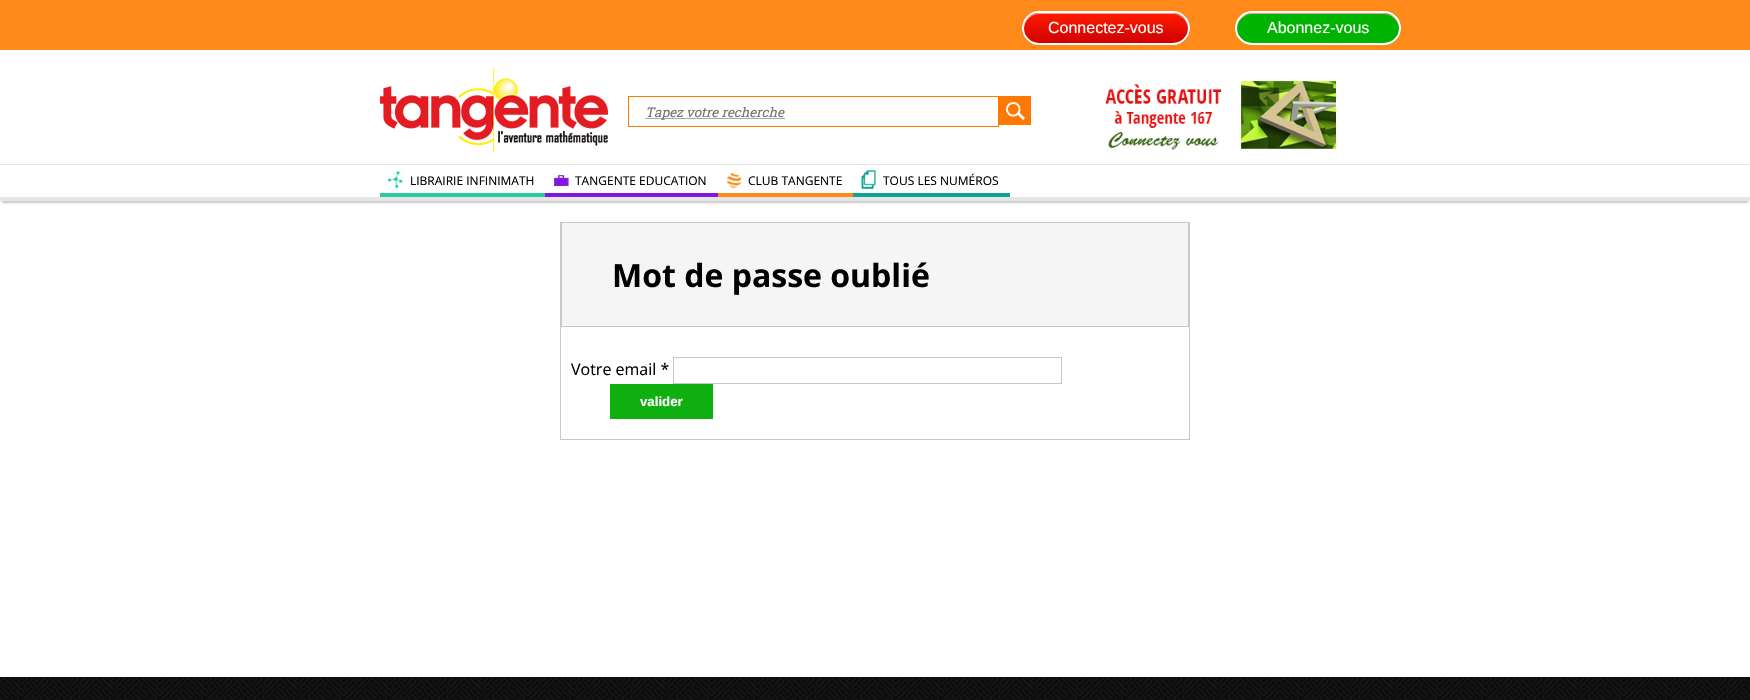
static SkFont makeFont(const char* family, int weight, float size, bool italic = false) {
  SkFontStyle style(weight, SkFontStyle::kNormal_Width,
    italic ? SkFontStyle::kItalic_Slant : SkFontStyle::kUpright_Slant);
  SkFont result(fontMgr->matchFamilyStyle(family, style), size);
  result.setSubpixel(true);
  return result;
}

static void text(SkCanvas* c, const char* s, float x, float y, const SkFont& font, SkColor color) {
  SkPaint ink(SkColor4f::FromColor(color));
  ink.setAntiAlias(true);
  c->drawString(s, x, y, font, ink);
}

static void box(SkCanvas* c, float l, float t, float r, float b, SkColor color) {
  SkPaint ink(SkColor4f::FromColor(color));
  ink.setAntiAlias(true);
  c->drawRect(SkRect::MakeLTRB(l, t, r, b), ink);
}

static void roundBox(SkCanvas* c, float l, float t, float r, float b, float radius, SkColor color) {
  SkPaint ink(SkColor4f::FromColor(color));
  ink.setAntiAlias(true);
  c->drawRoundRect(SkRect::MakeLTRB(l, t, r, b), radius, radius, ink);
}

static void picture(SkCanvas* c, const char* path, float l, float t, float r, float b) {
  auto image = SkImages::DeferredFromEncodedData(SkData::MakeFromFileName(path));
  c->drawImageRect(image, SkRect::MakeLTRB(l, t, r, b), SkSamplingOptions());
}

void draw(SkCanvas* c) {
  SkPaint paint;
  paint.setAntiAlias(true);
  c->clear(0xffffffff);
  box(c, 0, 0, 1750, 50, 0xffff8a19);
  c->save();
  c->clipPath(SkPathBuilder().moveTo(1039, 11).lineTo(1173, 11).cubicTo(1182.5f, 11, 1190, 18.5f, 1190, 28).cubicTo(1190, 37.5f, 1182.5f, 45, 1173, 45).lineTo(1039, 45).cubicTo(1029.5f, 45, 1022, 37.5f, 1022, 28).cubicTo(1022, 18.5f, 1029.5f, 11, 1039, 11).close().detach(), true);
  {
    const SkColor colors[] = {0xfffe1a00, 0xffce0100};
    const float stops[] = {0.05f, 1};
    const SkPoint ends[] = {{1106, 13}, {1106, 43}};
    paint.setShader(SkGradientShader::MakeLinear(ends, colors, stops, 2, SkTileMode::kClamp));
    paint.setAlpha(255);
  }
  c->drawRect(SkRect::MakeLTRB(1022, 13, 1190, 43), paint);
  c->restore();
  paint.setShader(nullptr);
  paint.setColor(0xfff29c93);
  c->drawPath(SkPathBuilder().moveTo(1039, 14).lineTo(1173, 14).cubicTo(1181, 14, 1188, 21, 1188, 29).cubicTo(1189, 8, 1162, 13, 1151, 13).lineTo(1061, 13).cubicTo(1050, 13, 1023, 8, 1024, 29).cubicTo(1024, 21, 1031, 14, 1039, 14).close().detach(), paint);
  paint.setStyle(SkPaint::kStroke_Style);
  paint.setStrokeWidth(2);
  paint.setColor(0xffffffff);
  c->drawRoundRect(SkRect::MakeLTRB(1023, 12, 1189, 44), 16, 16, paint);
  SkFont face1 = makeFont("Liberation Sans", 400, 16);
  text(c, "Connectez-vous", 1048, 33, face1, 0xffffffff);
  roundBox(c, 1235, 11, 1401, 45, 17, 0xff00b300);
  paint.setStyle(SkPaint::kFill_Style);
  paint.setColor(0xfff29c93);
  c->drawPath(SkPathBuilder().moveTo(1252, 14).lineTo(1384, 14).cubicTo(1392, 14, 1399, 21, 1399, 29).cubicTo(1400, 8, 1374, 13, 1362, 13).lineTo(1274, 13).cubicTo(1262, 13, 1236, 8, 1237, 29).cubicTo(1237, 21, 1244, 14, 1252, 14).close().detach(), paint);
  paint.setStyle(SkPaint::kStroke_Style);
  paint.setColor(0xffffffff);
  c->drawRoundRect(SkRect::MakeLTRB(1236, 12, 1400, 44), 16, 16, paint);
  text(c, "Abonnez-vous", 1267, 33, face1, 0xffffffff);
  box(c, 0, 164, 1750, 165, 0xffe6e6e6);
  picture(c, "img_01.png", 380, 68, 608, 153);
  paint.setStrokeWidth(1);
  paint.setColor(0xffff7900);
  c->drawRect(SkRect::MakeLTRB(628.5f, 96.5f, 998.5f, 126.5f), paint);
  box(c, 645, 118, 785, 119, 0xffa3abab);
  SkFont face2 = makeFont("Roboto Slab", 400, 13.25f, true);
  text(c, "Tapez votre recherche", 645, 117, face2, 0xff757575);
  picture(c, "img_02.png", 999, 96, 1031, 125);
  picture(c, "img_03.png", 1105, 81, 1336, 150);
  c->save();
  c->clipRect(SkRect::MakeLTRB(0, 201, 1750, 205));
  paint.setStyle(SkPaint::kFill_Style);
  paint.setColor(0xffc8c8c8);
  paint.setMaskFilter(SkMaskFilter::MakeBlur(kNormal_SkBlurStyle, 1));
  c->drawRect(SkRect::MakeLTRB(2, 171, 1748, 203), paint);
  paint.setMaskFilter(nullptr);
  c->restore();
  box(c, 0, 197, 1750, 201, 0xffe6e6e6);
  picture(c, "img_04.png", 388, 165, 404, 189);
  box(c, 380, 193, 545, 197, 0xff27cca4);
  SkFont face3 = makeFont("Open Sans", 400, 12);
  text(c, "LIBRAIRIE INFINIMATH", 410, 185, face3, 0xff000000);
  picture(c, "img_05.png", 553, 173, 569, 189);
  box(c, 545, 193, 718, 197, 0xff8216dd);
  text(c, "TANGENTE EDUCATION", 575, 185, face3, 0xff000000);
  picture(c, "img_06.png", 726, 173, 742, 189);
  box(c, 718, 193, 853, 197, 0xffff8a19);
  text(c, "CLUB TANGENTE", 748, 185, face3, 0xff000000);
  picture(c, "img_07.png", 861, 165, 877, 189);
  box(c, 853, 193, 1010, 197, 0xff0da696);
  text(c, "TOUS LES NUMÉROS", 883, 185, face3, 0xff000000);
  box(c, 1189, 222, 1190, 440, 0xffc8c8c8);
  box(c, 560, 439, 1190, 440, 0xffc8c8c8);
  box(c, 560, 222, 561, 440, 0xffc8c8c8);
  paint.setColor(0xfff5f5f5);
  c->drawRect(SkRect::MakeLTRB(561.5f, 222.5f, 1188.5f, 326.5f), paint);
  paint.setStyle(SkPaint::kStroke_Style);
  paint.setColor(0xffc8c8c8);
  c->drawRect(SkRect::MakeLTRB(561.5f, 222.5f, 1188.5f, 326.5f), paint);
  SkFont face4 = makeFont("Open Sans", 700, 32);
  text(c, "Mot de passe oublié", 612, 287, face4, 0xff000000);
  SkFont face5 = makeFont("Open Sans", 400, 16);
  text(c, "Votre email *", 571, 375, face5, 0xff000000);
  c->drawRect(SkRect::MakeLTRB(673.5f, 357.5f, 1061.5f, 383.5f), paint);
  box(c, 610, 384, 713, 419, 0xff0faf0f);
  SkFont face6 = makeFont("Liberation Sans", 700, 13.25f);
  text(c, "valider", 640, 406, face6, 0xffffffff);
  picture(c, "img_08.png", 0, 677, 1750, 700);
}
